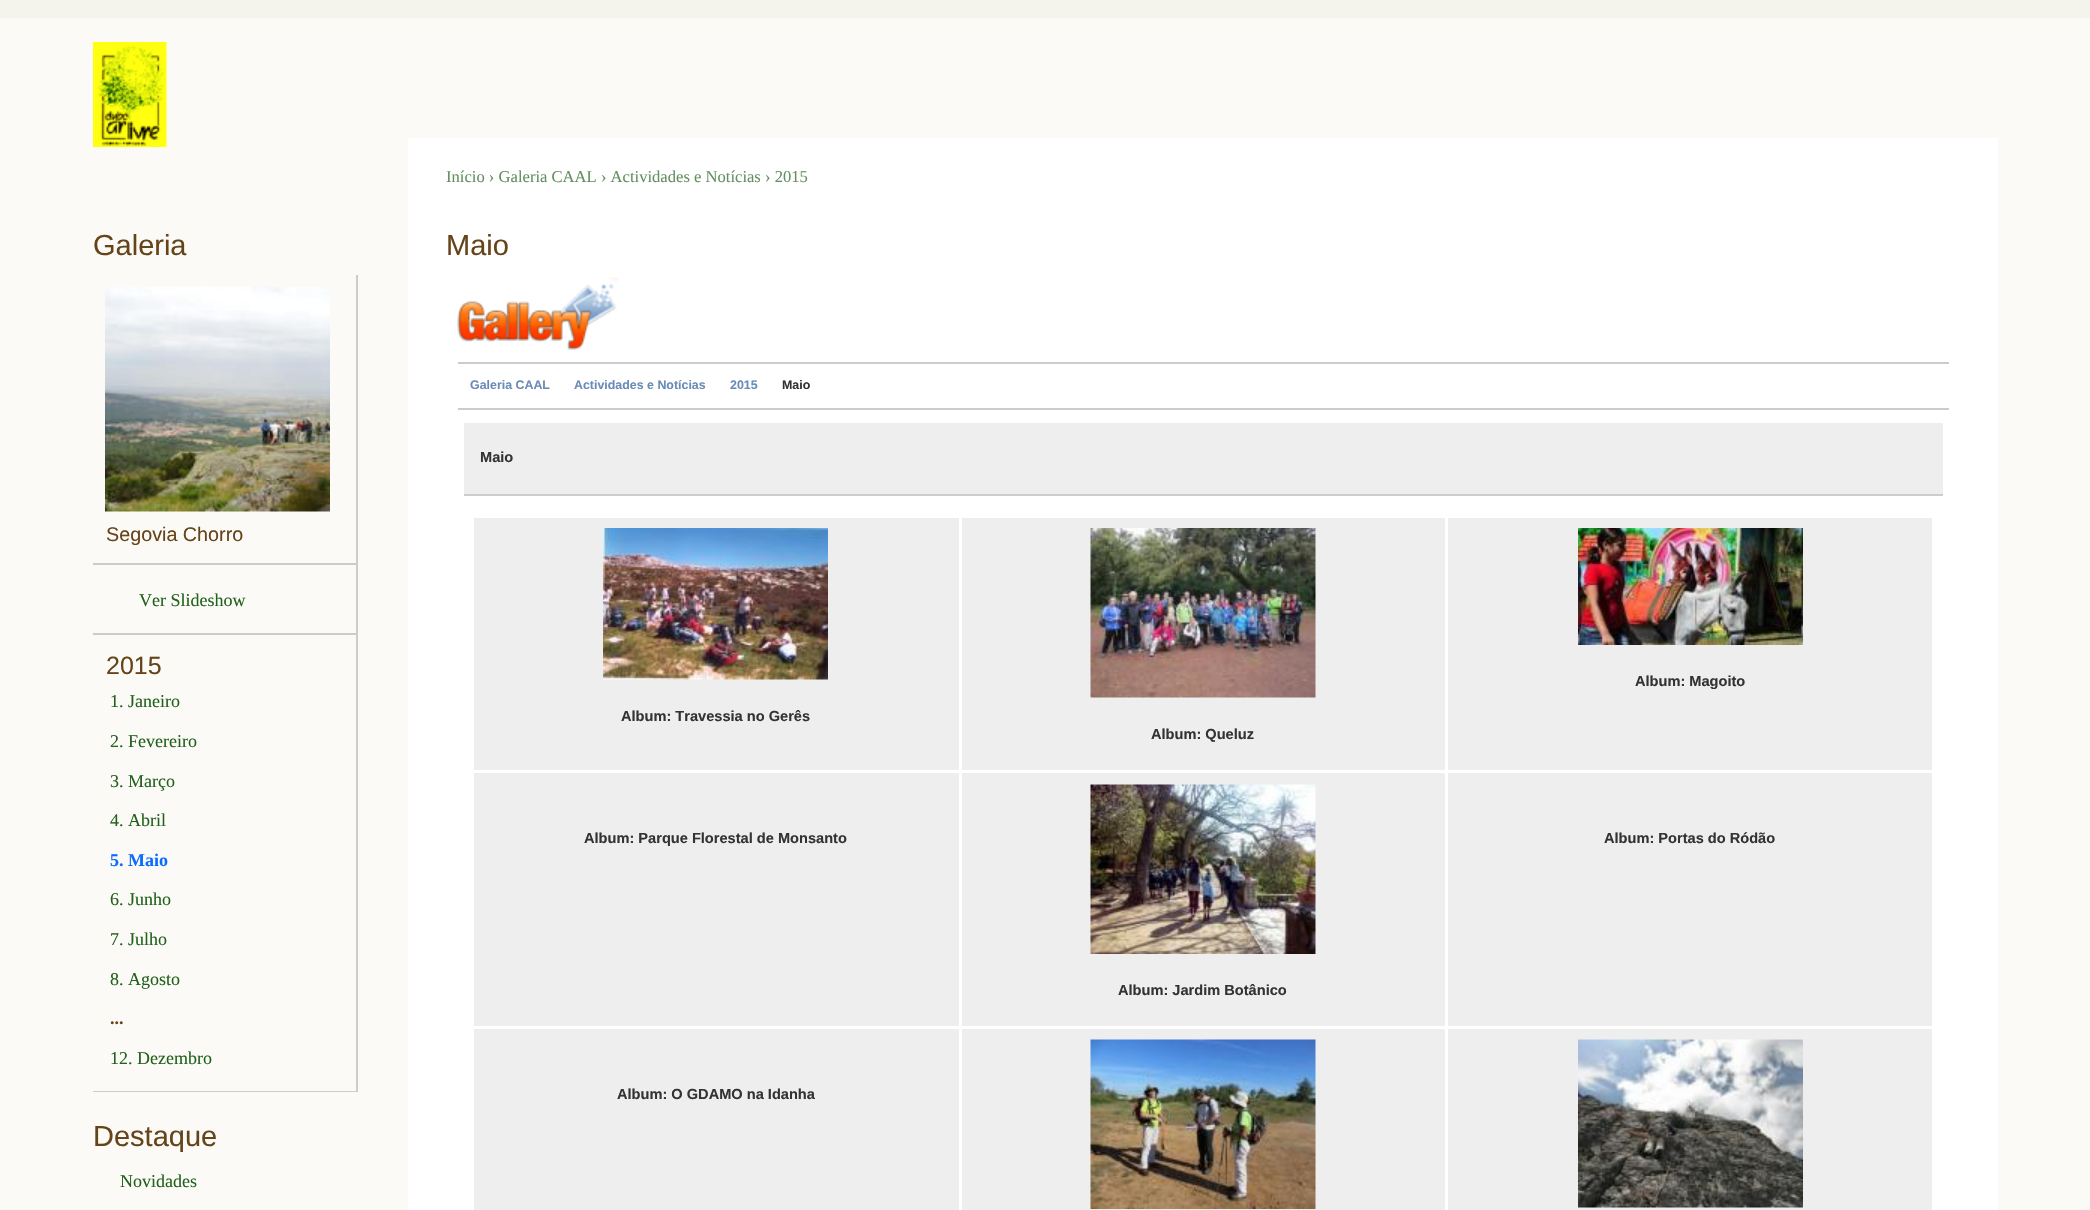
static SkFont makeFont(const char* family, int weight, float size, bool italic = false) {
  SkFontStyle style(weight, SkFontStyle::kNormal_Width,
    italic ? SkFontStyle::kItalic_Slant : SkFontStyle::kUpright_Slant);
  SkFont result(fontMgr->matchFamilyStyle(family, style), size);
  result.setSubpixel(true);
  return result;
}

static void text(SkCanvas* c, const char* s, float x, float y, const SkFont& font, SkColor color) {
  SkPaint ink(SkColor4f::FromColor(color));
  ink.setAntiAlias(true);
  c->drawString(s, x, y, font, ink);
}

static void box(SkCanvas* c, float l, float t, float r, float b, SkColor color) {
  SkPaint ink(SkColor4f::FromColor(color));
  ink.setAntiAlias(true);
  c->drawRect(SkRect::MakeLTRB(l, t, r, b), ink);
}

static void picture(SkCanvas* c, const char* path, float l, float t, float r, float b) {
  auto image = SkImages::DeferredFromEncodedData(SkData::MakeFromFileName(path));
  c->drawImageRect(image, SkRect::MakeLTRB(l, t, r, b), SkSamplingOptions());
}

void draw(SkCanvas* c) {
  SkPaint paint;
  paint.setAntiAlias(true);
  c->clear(0xfffbfaf7);
  box(c, 0, 0, 2090, 18, 0xfff5f4ec);
  picture(c, "img_01.png", 93, 42, 167, 147);
  SkFont face1 = makeFont("Liberation Sans", 400, 29);
  text(c, "Galeria", 93, 255, face1, 0xff664419);
  box(c, 356, 275, 358, 1092, 0xffcccccc);
  box(c, 93, 563, 356, 565, 0xffcccccc);
  picture(c, "img_02.png", 105, 286, 330, 512);
  SkFont face2 = makeFont("Liberation Sans", 400, 19.75f);
  text(c, "Segovia Chorro", 106, 541, face2, 0xff664419);
  box(c, 93, 633, 356, 635, 0xffcccccc);
  SkFont face3 = makeFont("Liberation Serif", 400, 18);
  text(c, "Ver Slideshow", 139, 606, face3, 0xff21611a);
  box(c, 93, 1091, 356, 1092, 0xffcccccc);
  SkFont face4 = makeFont("Liberation Sans", 400, 25);
  text(c, "2015", 106, 674, face4, 0xff664419);
  text(c, "1. Janeiro", 110, 707, face3, 0xff21611a);
  text(c, "2. Fevereiro", 110, 747, face3, 0xff21611a);
  text(c, "3. Março", 110, 787, face3, 0xff21611a);
  text(c, "4. Abril", 110, 826, face3, 0xff21611a);
  SkFont face5 = makeFont("Liberation Serif", 700, 18);
  text(c, "5. Maio", 110, 866, face5, 0xff0b6cff);
  text(c, "6. Junho", 110, 905, face3, 0xff21611a);
  text(c, "7. Julho", 110, 945, face3, 0xff21611a);
  text(c, "8. Agosto", 110, 985, face3, 0xff21611a);
  text(c, "...", 110, 1024, face5, 0xff664419);
  text(c, "12. Dezembro", 110, 1064, face3, 0xff21611a);
  text(c, "Destaque", 93, 1146, face1, 0xff664419);
  text(c, "Novidades", 120, 1187, face3, 0xff21611a);
  box(c, 408, 138, 1998, 1210, 0xffffffff);
  SkFont face6 = makeFont("Liberation Serif", 400, 16.6f);
  text(c, "Início › Galeria CAAL › Actividades e Notícias › 2015", 446, 182, face6, 0xff639061);
  text(c, "Maio", 446, 255, face1, 0xff664419);
  picture(c, "img_03.png", 457, 277, 618, 350);
  box(c, 458, 362, 1949, 364, 0xffcccccc);
  box(c, 458, 408, 1949, 410, 0xffcccccc);
  SkFont face7 = makeFont("Liberation Sans", 700, 12.4f);
  text(c, "Galeria CAAL", 470, 389, face7, 0xff6b8cb7);
  text(c, "Actividades e Notícias", 574, 389, face7, 0xff6b8cb7);
  text(c, "2015", 730, 389, face7, 0xff6b8cb7);
  text(c, "Maio", 782, 389, face7, 0xff333333);
  box(c, 464, 423, 1943, 494, 0xffeeeeee);
  box(c, 464, 494, 1943, 496, 0xffcccccc);
  SkFont face8 = makeFont("Liberation Sans", 700, 14.6f);
  text(c, "Maio", 480, 462, face8, 0xff333333);
  box(c, 1448, 518, 1932, 770, 0xffeeeeee);
  picture(c, "img_04.png", 1578, 528, 1803, 645);
  text(c, "Album: Magoito", 1635, 686, face8, 0xff333333);
  box(c, 474, 518, 959, 770, 0xffeeeeee);
  picture(c, "img_05.png", 603, 528, 828, 680);
  text(c, "Album: Travessia no Gerês", 621, 721, face8, 0xff333333);
  box(c, 962, 518, 1445, 770, 0xffeeeeee);
  picture(c, "img_06.png", 1090, 528, 1316, 698);
  text(c, "Album: Queluz", 1151, 739, face8, 0xff333333);
  box(c, 474, 773, 959, 1026, 0xffeeeeee);
  text(c, "Album: Parque Florestal de Monsanto", 584, 843, face8, 0xff333333);
  box(c, 1448, 773, 1932, 1026, 0xffeeeeee);
  text(c, "Album: Portas do Ródão", 1604, 843, face8, 0xff333333);
  box(c, 962, 773, 1445, 1026, 0xffeeeeee);
  picture(c, "img_07.png", 1090, 784, 1316, 954);
  text(c, "Album: Jardim Botânico", 1118, 995, face8, 0xff333333);
  box(c, 474, 1029, 959, 1210, 0xffeeeeee);
  text(c, "Album: O GDAMO na Idanha", 617, 1099, face8, 0xff333333);
  box(c, 962, 1029, 1445, 1210, 0xffeeeeee);
  picture(c, "img_08.png", 1090, 1039, 1316, 1209);
  box(c, 1448, 1029, 1932, 1210, 0xffeeeeee);
  picture(c, "img_09.png", 1578, 1039, 1803, 1208);
}
